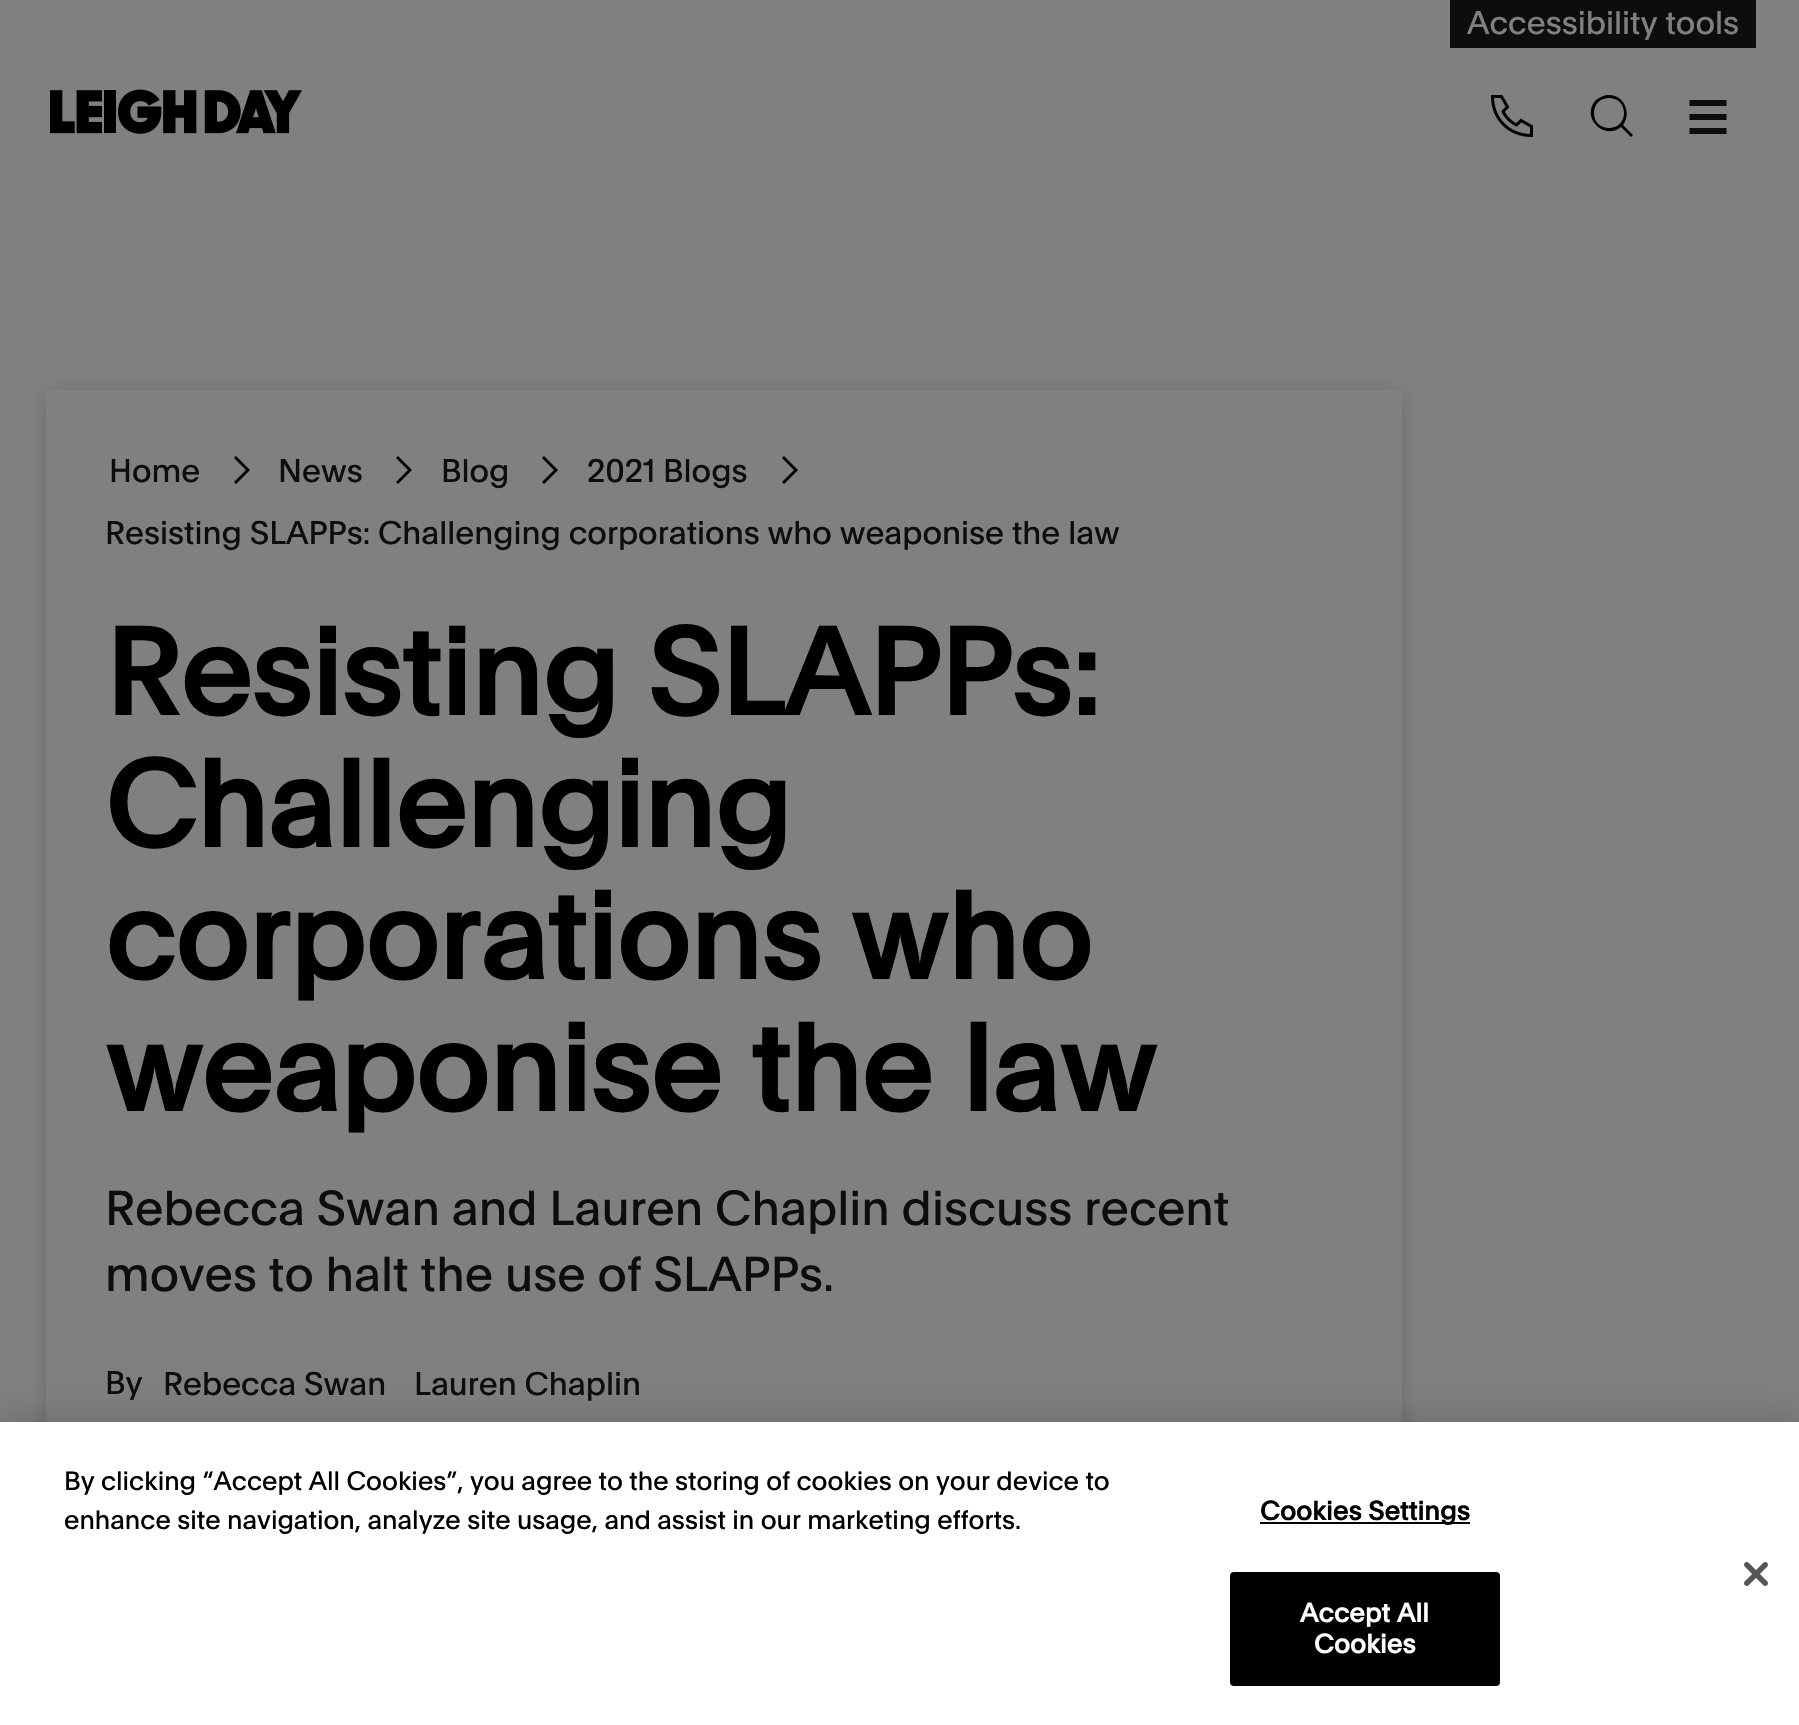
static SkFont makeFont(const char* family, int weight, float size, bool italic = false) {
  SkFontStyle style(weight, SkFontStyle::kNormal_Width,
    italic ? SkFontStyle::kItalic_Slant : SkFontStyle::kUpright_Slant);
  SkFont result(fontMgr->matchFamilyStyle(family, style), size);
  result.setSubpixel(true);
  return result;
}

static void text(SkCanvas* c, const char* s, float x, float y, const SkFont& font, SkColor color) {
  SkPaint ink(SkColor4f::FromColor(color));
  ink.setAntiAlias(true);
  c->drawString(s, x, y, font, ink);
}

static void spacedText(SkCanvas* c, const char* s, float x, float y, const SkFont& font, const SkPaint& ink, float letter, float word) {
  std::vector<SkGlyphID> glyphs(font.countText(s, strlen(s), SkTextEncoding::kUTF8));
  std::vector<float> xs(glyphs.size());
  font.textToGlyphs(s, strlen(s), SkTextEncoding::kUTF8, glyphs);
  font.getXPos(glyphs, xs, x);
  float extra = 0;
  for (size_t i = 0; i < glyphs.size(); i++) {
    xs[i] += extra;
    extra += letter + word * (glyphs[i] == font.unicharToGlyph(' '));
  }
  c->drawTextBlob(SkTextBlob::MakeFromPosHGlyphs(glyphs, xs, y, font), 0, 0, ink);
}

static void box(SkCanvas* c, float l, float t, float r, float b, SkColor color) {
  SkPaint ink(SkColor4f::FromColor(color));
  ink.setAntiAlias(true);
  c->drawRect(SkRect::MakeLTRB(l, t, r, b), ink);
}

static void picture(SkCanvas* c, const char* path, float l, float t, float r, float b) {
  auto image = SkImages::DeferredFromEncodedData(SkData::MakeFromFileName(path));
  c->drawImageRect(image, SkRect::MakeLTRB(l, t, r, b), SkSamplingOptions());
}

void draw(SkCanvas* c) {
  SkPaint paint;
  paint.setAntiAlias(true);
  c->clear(0xff808080);
  box(c, 1450, 0, 1756, 48, 0xff0d0d0d);
  SkFont face1 = makeFont("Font", 400, 32);
  text(c, "Accessibility tools", 1467, 34, face1, 0xff808080);
  picture(c, "img_01.png", 50, 89, 302, 134);
  picture(c, "img_02.png", 1491, 95, 1533, 137);
  paint.setColor(0xff000000);
  c->drawPath(SkPathBuilder(SkPathFillType::kEvenOdd).moveTo(1594, 113).cubicTo(1594, 93, 1624, 93, 1624, 113).cubicTo(1624, 133, 1594, 133, 1594, 113).close().moveTo(1609, 95).cubicTo(1604, 95, 1600, 97, 1596, 100).cubicTo(1580, 117, 1604, 141, 1621, 127).lineTo(1631, 137).lineTo(1633, 135).lineTo(1623, 125).cubicTo(1632, 113, 1624, 95, 1609, 95).close().detach(), paint);
  paint.setStyle(SkPaint::kStroke_Style);
  paint.setStrokeWidth(6);
  paint.setStrokeCap(SkPaint::kSquare_Cap);
  paint.setStrokeJoin(SkPaint::kRound_Join);
  paint.setColor(0xff0d0d0d);
  c->drawPath(SkPathBuilder().moveTo(1692.5f, 103).lineTo(1723.5f, 103).moveTo(1692.5f, 117).lineTo(1723.5f, 117).moveTo(1692.5f, 131).lineTo(1723.5f, 131).detach(), paint);
  c->save();
  c->clipPath(SkPathBuilder(SkPathFillType::kEvenOdd).moveTo(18, 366).lineTo(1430, 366).lineTo(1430, 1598).lineTo(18, 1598).close().moveTo(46, 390).lineTo(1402, 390).lineTo(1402, 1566).lineTo(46, 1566).close().detach(), true);
  paint.setStyle(SkPaint::kFill_Style);
  paint.setColor(0x33171717);
  paint.setMaskFilter(SkMaskFilter::MakeBlur(kNormal_SkBlurStyle, 9));
  c->drawRect(SkRect::MakeLTRB(46, 394, 1402, 1570), paint);
  paint.setMaskFilter(nullptr);
  c->restore();
  text(c, "Home", 109, 482, face1, 0xff0d0d0d);
  paint.setColor(0xff000000);
  c->drawPath(SkPathBuilder(SkPathFillType::kEvenOdd).moveTo(236, 484).lineTo(234, 482).lineTo(246, 470).lineTo(234, 458).lineTo(236, 456).lineTo(250, 470).close().detach(), paint);
  text(c, "News", 278, 482, face1, 0xff0d0d0d);
  c->drawPath(SkPathBuilder(SkPathFillType::kEvenOdd).moveTo(398, 484).lineTo(396, 482).lineTo(408, 470).lineTo(396, 458).lineTo(398, 456).lineTo(412, 470).close().detach(), paint);
  text(c, "Blog", 441, 482, face1, 0xff0d0d0d);
  c->drawPath(SkPathBuilder(SkPathFillType::kEvenOdd).moveTo(544, 484).lineTo(542, 482).lineTo(554, 470).lineTo(542, 458).lineTo(544, 456).lineTo(558, 470).close().detach(), paint);
  text(c, "2021 Blogs", 587, 482, face1, 0xff0d0d0d);
  c->drawPath(SkPathBuilder(SkPathFillType::kEvenOdd).moveTo(784, 484).lineTo(782, 482).lineTo(794, 470).lineTo(782, 458).lineTo(784, 456).lineTo(798, 470).close().detach(), paint);
  text(c, "Resisting SLAPPs: Challenging corporations who weaponise the law", 105, 544, face1, 0xff0d0d0d);
  SkFont face2 = makeFont("Font", 700, 120);
  text(c, "Resisting SLAPPs:", 105, 715, face2, 0xff000000);
  text(c, "Challenging", 105, 847, face2, 0xff000000);
  text(c, "corporations who", 105, 979, face2, 0xff000000);
  text(c, "weaponise the law", 105, 1111, face2, 0xff000000);
  SkFont face3 = makeFont("Font", 400, 48);
  text(c, "Rebecca Swan and Lauren Chaplin discuss recent", 105, 1225, face3, 0xff0d0d0d);
  text(c, "moves to halt the use of SLAPPs.", 105, 1291, face3, 0xff0d0d0d);
  text(c, "By", 105, 1394, face1, 0xff0d0d0d);
  text(c, "Rebecca Swan", 163, 1395, face1, 0xff0d0d0d);
  text(c, "Lauren Chaplin", 414, 1395, face1, 0xff0d0d0d);
  paint.setColor(0x33000000);
  paint.setMaskFilter(SkMaskFilter::MakeBlur(kNormal_SkBlurStyle, 18));
  c->drawRect(SkRect::MakeLTRB(0, 1422, 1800, 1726), paint);
  paint.setMaskFilter(nullptr);
  box(c, 0, 1422, 1799, 1725, 0xffffffff);
  SkFont face4 = makeFont("Font", 400, 26);
  text(c, "By clicking “Accept All Cookies”, you agree to the storing of cookies on your device to", 64, 1490, face4, 0xff000000);
  text(c, "enhance site navigation, analyze site usage, and assist in our marketing efforts.", 64, 1529, face4, 0xff000000);
  box(c, 1260, 1522, 1470, 1524, 0xff000000);
  SkFont face5 = makeFont("Font", 700, 26);
  paint.setColor(0xff000000);
  spacedText(c, "Cookies Settings", 1260, 1520, face5, paint, 0.25f, 0);
  c->drawRoundRect(SkRect::MakeLTRB(1231, 1573, 1499, 1685), 3, 3, paint);
  paint.setStyle(SkPaint::kStroke_Style);
  paint.setStrokeWidth(2);
  paint.setStrokeCap(SkPaint::kButt_Cap);
  paint.setStrokeJoin(SkPaint::kMiter_Join);
  c->drawRoundRect(SkRect::MakeLTRB(1231, 1573, 1499, 1685), 3, 3, paint);
  paint.setStyle(SkPaint::kFill_Style);
  paint.setColor(0xffffffff);
  spacedText(c, "Accept All", 1300, 1622, face5, paint, 0.25f, 0);
  spacedText(c, "Cookies", 1314, 1653, face5, paint, 0.25f, 0);
  picture(c, "img_03.png", 1744, 1562, 1768, 1586);
}
